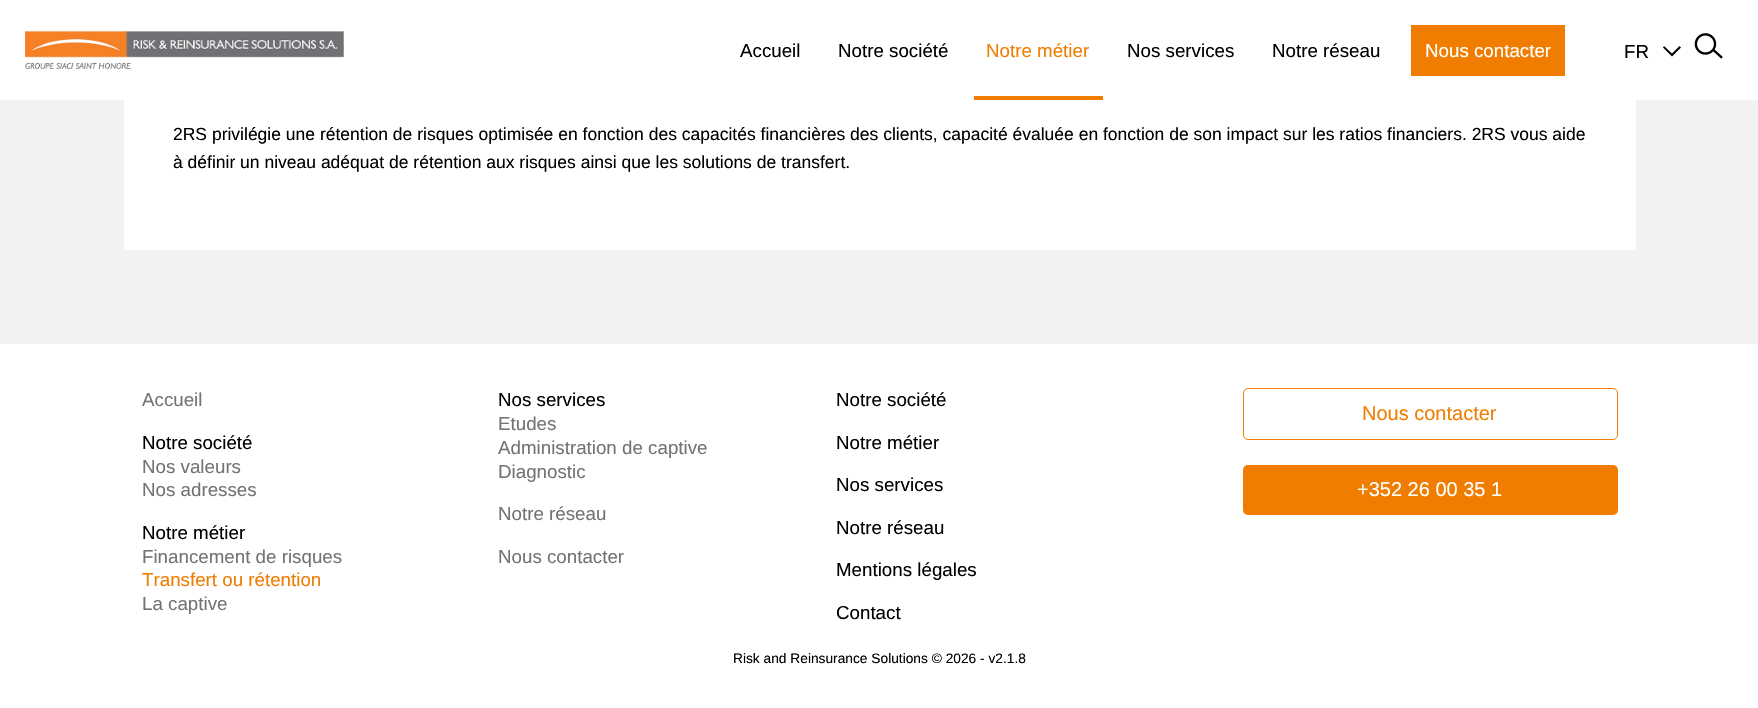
static SkFont makeFont(const char* family, int weight, float size, bool italic = false) {
  SkFontStyle style(weight, SkFontStyle::kNormal_Width,
    italic ? SkFontStyle::kItalic_Slant : SkFontStyle::kUpright_Slant);
  SkFont result(fontMgr->matchFamilyStyle(family, style), size);
  result.setSubpixel(true);
  return result;
}

static void text(SkCanvas* c, const char* s, float x, float y, const SkFont& font, SkColor color) {
  SkPaint ink(SkColor4f::FromColor(color));
  ink.setAntiAlias(true);
  c->drawString(s, x, y, font, ink);
}

static void box(SkCanvas* c, float l, float t, float r, float b, SkColor color) {
  SkPaint ink(SkColor4f::FromColor(color));
  ink.setAntiAlias(true);
  c->drawRect(SkRect::MakeLTRB(l, t, r, b), ink);
}

static void roundBox(SkCanvas* c, float l, float t, float r, float b, float radius, SkColor color) {
  SkPaint ink(SkColor4f::FromColor(color));
  ink.setAntiAlias(true);
  c->drawRoundRect(SkRect::MakeLTRB(l, t, r, b), radius, radius, ink);
}

static void picture(SkCanvas* c, const char* path, float l, float t, float r, float b) {
  auto image = SkImages::DeferredFromEncodedData(SkData::MakeFromFileName(path));
  c->drawImageRect(image, SkRect::MakeLTRB(l, t, r, b), SkSamplingOptions());
}

void draw(SkCanvas* c) {
  SkPaint paint;
  paint.setAntiAlias(true);
  c->clear(0xfff2f2f2);
  box(c, 0, 0, 1758, 100, 0xffffffff);
  picture(c, "img_01.png", 25, 30, 344, 69);
  SkFont face1 = makeFont("Liberation Sans", 400, 18.75f);
  text(c, "Accueil", 740, 57, face1, 0xff000000);
  text(c, "Notre société", 838, 57, face1, 0xff000000);
  text(c, "Notre métier", 986, 57, face1, 0xfff07d00);
  box(c, 974, 96, 1103, 100, 0xfff07d00);
  text(c, "Nos services", 1127, 57, face1, 0xff000000);
  text(c, "Notre réseau", 1272, 57, face1, 0xff000000);
  box(c, 1411, 25, 1565, 76, 0xfff07d00);
  text(c, "Nous contacter", 1425, 57, face1, 0xffffffff);
  text(c, "FR", 1624, 58, face1, 0xff000000);
  paint.setColor(0xff000000);
  c->drawPath(SkPathBuilder().moveTo(1663, 47.5f).lineTo(1664, 46).lineTo(1672, 53.5f).lineTo(1679.5f, 46).lineTo(1681, 47.5f).lineTo(1672, 56.5f).close().detach(), paint);
  picture(c, "img_02.png", 1694, 33, 1723, 59);
  box(c, 124, 100, 1636, 250, 0xffffffff);
  SkFont face2 = makeFont("Liberation Sans", 400, 17.5f);
  text(c, "2RS privilégie une rétention de risques optimisée en fonction des capacités financières des clients, capacité évaluée en fonction de son impact sur les ratios financiers. 2RS vous aide", 173, 140, face2, 0xff000000);
  text(c, "à définir un niveau adéquat de rétention aux risques ainsi que les solutions de transfert.", 173, 168, face2, 0xff000000);
  box(c, 0, 344, 1758, 708, 0xffffffff);
  text(c, "Accueil", 142, 406, face1, 0xff747373);
  text(c, "Nos services", 498, 406, face1, 0xff000000);
  text(c, "Etudes", 498, 430, face1, 0xff747373);
  text(c, "Administration de captive", 498, 454, face1, 0xff747373);
  text(c, "Diagnostic", 498, 478, face1, 0xff747373);
  text(c, "Notre société", 142, 449, face1, 0xff000000);
  text(c, "Nos valeurs", 142, 473, face1, 0xff747373);
  text(c, "Nos adresses", 142, 496, face1, 0xff747373);
  text(c, "Notre réseau", 498, 520, face1, 0xff747373);
  text(c, "Notre métier", 142, 539, face1, 0xff000000);
  text(c, "Financement de risques", 142, 563, face1, 0xff747373);
  text(c, "Transfert ou rétention", 142, 586, face1, 0xfff07d00);
  text(c, "La captive", 142, 610, face1, 0xff747373);
  text(c, "Nous contacter", 498, 563, face1, 0xff747373);
  text(c, "Notre société", 836, 406, face1, 0xff000000);
  text(c, "Notre métier", 836, 449, face1, 0xff000000);
  text(c, "Nos services", 836, 491, face1, 0xff000000);
  text(c, "Notre réseau", 836, 534, face1, 0xff000000);
  text(c, "Mentions légales", 836, 576, face1, 0xff000000);
  text(c, "Contact", 836, 619, face1, 0xff000000);
  paint.setStyle(SkPaint::kStroke_Style);
  paint.setStrokeWidth(1);
  paint.setColor(0xfff07d00);
  c->drawRoundRect(SkRect::MakeLTRB(1243.5f, 388.5f, 1617.5f, 439.5f), 4.5f, 4.5f, paint);
  SkFont face3 = makeFont("Liberation Sans", 400, 20);
  text(c, "Nous contacter", 1362, 420, face3, 0xfff07d00);
  roundBox(c, 1243, 465, 1618, 515, 5, 0xfff07d00);
  text(c, "+352 26 00 35 1", 1357, 496, face3, 0xffffffff);
  SkFont face4 = makeFont("Liberation Sans", 400, 13.75f);
  text(c, "Risk and Reinsurance Solutions © 2026 - v2.1.8", 733, 663, face4, 0xff000000);
}
